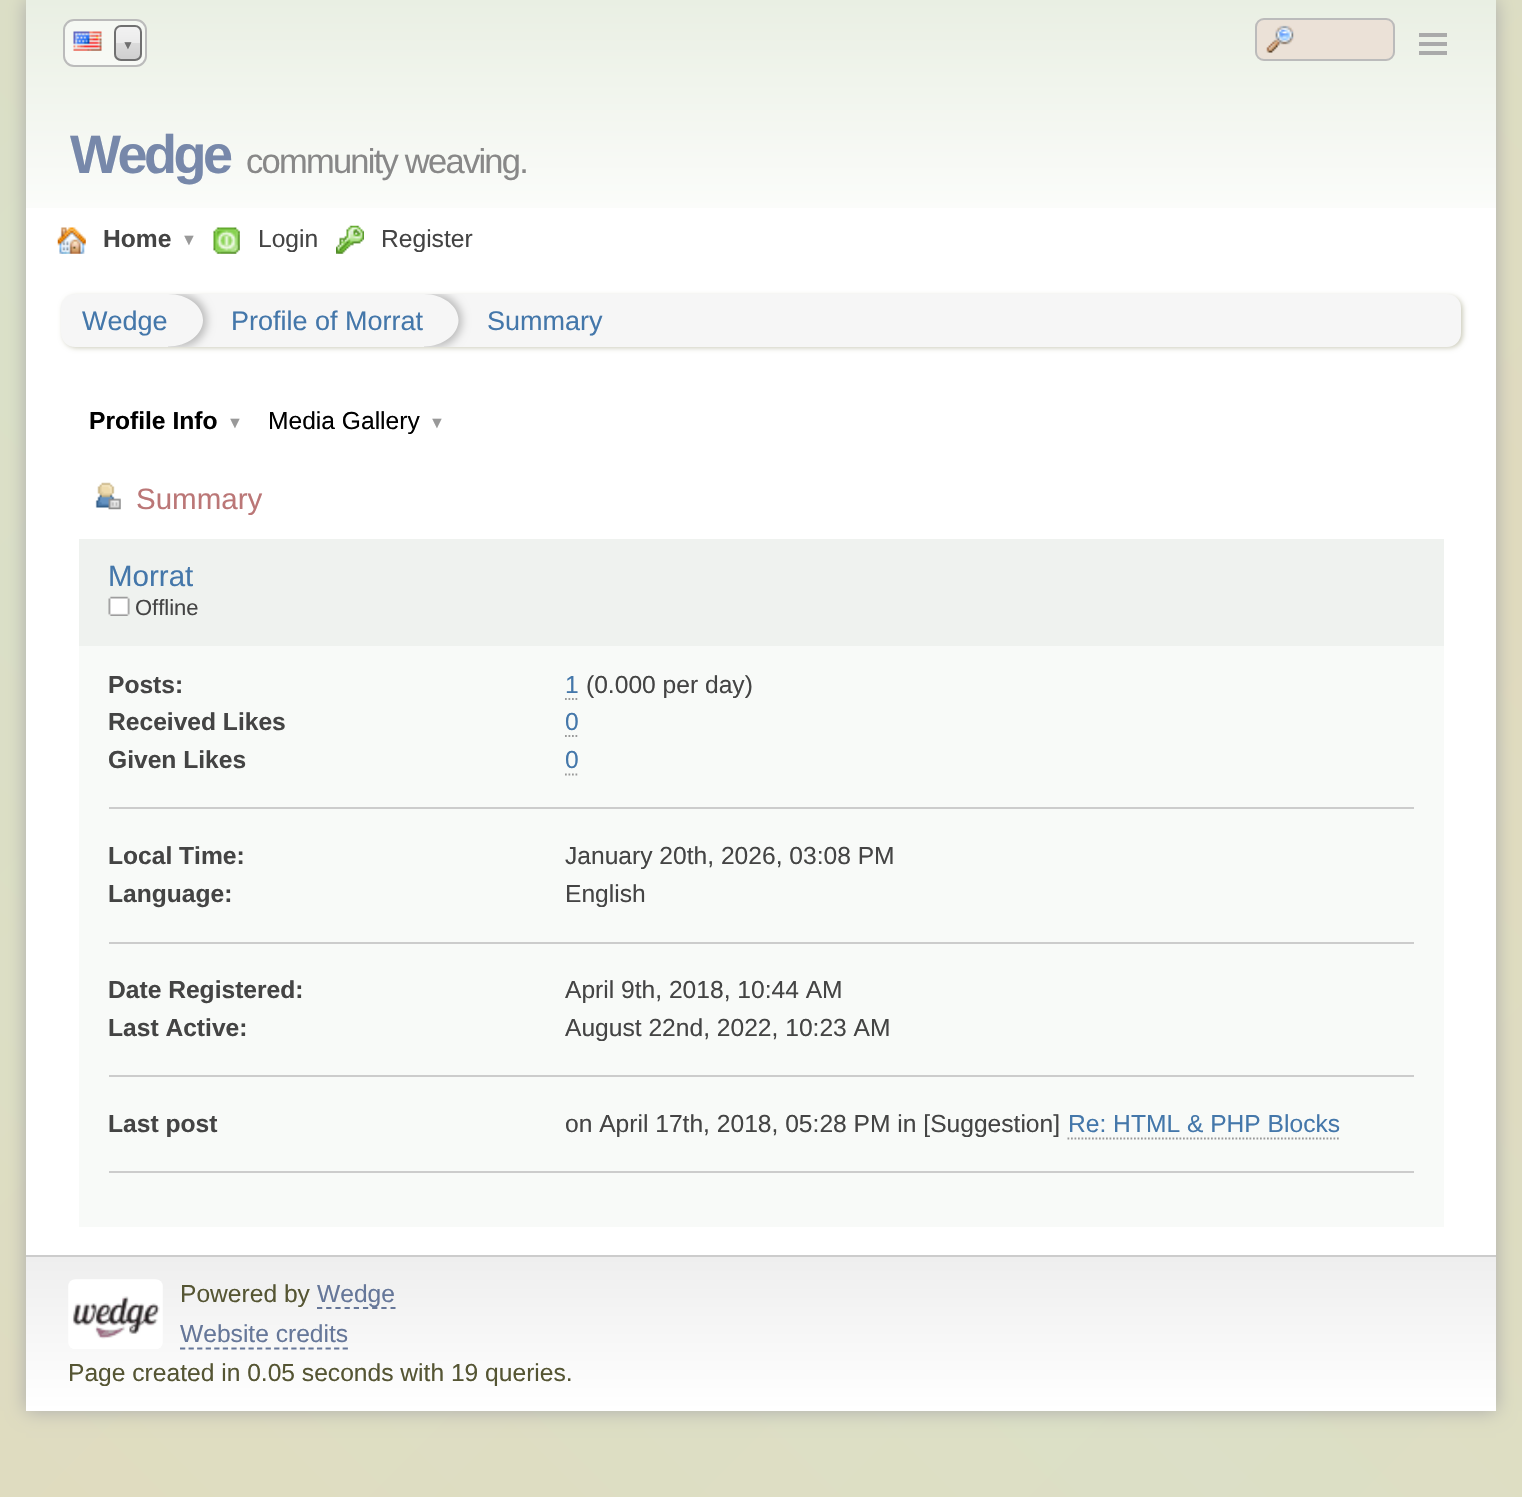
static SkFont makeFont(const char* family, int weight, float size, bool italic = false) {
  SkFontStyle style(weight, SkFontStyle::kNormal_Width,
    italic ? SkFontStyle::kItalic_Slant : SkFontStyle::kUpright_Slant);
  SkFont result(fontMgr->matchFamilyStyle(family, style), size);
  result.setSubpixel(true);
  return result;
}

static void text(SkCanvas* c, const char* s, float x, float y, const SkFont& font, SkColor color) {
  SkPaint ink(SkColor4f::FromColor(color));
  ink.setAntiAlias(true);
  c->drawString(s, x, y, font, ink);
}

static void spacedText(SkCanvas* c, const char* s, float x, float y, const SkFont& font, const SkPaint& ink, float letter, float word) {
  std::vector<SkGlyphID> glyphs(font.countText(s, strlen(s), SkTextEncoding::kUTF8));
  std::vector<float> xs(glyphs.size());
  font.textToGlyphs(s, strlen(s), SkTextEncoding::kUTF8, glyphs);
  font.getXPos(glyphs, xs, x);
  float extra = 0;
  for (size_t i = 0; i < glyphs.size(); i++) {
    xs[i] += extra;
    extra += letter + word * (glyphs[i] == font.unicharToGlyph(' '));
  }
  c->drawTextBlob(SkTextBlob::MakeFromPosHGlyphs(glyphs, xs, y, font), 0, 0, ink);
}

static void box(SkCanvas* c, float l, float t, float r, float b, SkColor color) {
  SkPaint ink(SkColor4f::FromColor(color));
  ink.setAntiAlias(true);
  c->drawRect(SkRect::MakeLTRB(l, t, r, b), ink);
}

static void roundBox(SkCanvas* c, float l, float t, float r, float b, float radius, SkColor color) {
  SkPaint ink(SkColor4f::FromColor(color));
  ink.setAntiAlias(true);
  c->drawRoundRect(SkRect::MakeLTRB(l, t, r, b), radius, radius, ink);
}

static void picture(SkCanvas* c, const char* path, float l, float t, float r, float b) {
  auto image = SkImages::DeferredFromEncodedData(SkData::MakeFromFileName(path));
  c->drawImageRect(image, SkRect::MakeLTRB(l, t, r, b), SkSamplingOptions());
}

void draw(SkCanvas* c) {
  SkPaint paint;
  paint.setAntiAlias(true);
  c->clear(0xffffffff);
  {
    const SkColor colors[] = {0xffece6d2, 0xffe6ecdc, 0xffece6d2};
    const float stops[] = {0, 0.5f, 1};
    const SkPoint ends[] = {{1516, 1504}, {-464, -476}};
    paint.setShader(SkGradientShader::MakeLinear(ends, colors, stops, 3, SkTileMode::kClamp));
    paint.setAlpha(255);
  }
  c->drawRect(SkRect::MakeLTRB(0, 0, 1522, 1497), paint);
  {
    const SkColor colors[] = {0x80d8cda5, 0x80cdd8b9, 0x80d8cda5, 0x80cdd8b9, 0x80d8cda5};
    const float stops[] = {0, 0.25f, 0.5f, 0.75f, 1};
    const SkPoint ends[] = {{6.1f, 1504}, {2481, -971}};
    paint.setShader(SkGradientShader::MakeLinear(ends, colors, stops, 5, SkTileMode::kClamp));
    paint.setAlpha(255);
  }
  c->drawRect(SkRect::MakeLTRB(0, 0, 1522, 1497), paint);
  paint.setShader(nullptr);
  paint.setColor(0xffaaaaaa);
  paint.setMaskFilter(SkMaskFilter::MakeBlur(kNormal_SkBlurStyle, 9));
  c->drawRect(SkRect::MakeLTRB(26, 0, 1496, 1411), paint);
  paint.setMaskFilter(nullptr);
  box(c, 26, 208, 1496, 1255, 0xffffffff);
  {
    const SkColor colors[] = {0xffe9efe3, 0xfffbfcfa};
    const float stops[] = {0, 1};
    const SkPoint ends[] = {{761, 0}, {761, 208}};
    paint.setShader(SkGradientShader::MakeLinear(ends, colors, stops, 2, SkTileMode::kClamp));
    paint.setAlpha(255);
  }
  c->drawRect(SkRect::MakeLTRB(26, 0, 1496, 208), paint);
  paint.setShader(nullptr);
  paint.setColor(0x80ffffff);
  c->drawRoundRect(SkRect::MakeLTRB(64, 20, 146, 66), 10, 10, paint);
  paint.setStyle(SkPaint::kStroke_Style);
  paint.setStrokeWidth(2);
  paint.setColor(0xffbbbbbb);
  c->drawRoundRect(SkRect::MakeLTRB(64, 20, 146, 66), 10, 10, paint);
  picture(c, "img_01.png", 73, 31, 102, 51);
  c->save();
  c->clipPath(SkPathBuilder().moveTo(121, 25).lineTo(135, 25).cubicTo(139, 25, 142, 28, 142, 32).lineTo(142, 54).cubicTo(142, 58, 139, 61, 135, 61).lineTo(121, 61).cubicTo(117, 61, 114, 58, 114, 54).lineTo(114, 32).cubicTo(114, 28, 117, 25, 121, 25).close().detach(), true);
  paint.setStyle(SkPaint::kFill_Style);
  {
    const SkColor colors[] = {0xfff2f2f2, 0xffebebeb, 0xffdbdbdb, 0xffcfcfcf};
    const float stops[] = {0, 0.5f, 0.5f, 1};
    const SkPoint ends[] = {{128, 26}, {128, 60}};
    paint.setShader(SkGradientShader::MakeLinear(ends, colors, stops, 4, SkTileMode::kClamp));
    paint.setAlpha(255);
  }
  c->drawRect(SkRect::MakeLTRB(114, 26, 142, 60), paint);
  c->restore();
  paint.setStyle(SkPaint::kStroke_Style);
  paint.setShader(nullptr);
  paint.setColor(0xff707070);
  c->drawRoundRect(SkRect::MakeLTRB(115, 26, 141, 60), 6, 6, paint);
  SkFont face1 = makeFont("Liberation Sans", 400, 12);
  text(c, "▼", 122, 49, face1, 0xff6f6f6f);
  roundBox(c, 1255, 18, 1395, 61, 9, 0xffebe1d7);
  picture(c, "img_02.png", 1266, 25, 1294, 53);
  paint.setColor(0xffbbbbbb);
  c->drawRoundRect(SkRect::MakeLTRB(1256, 19, 1394, 60), 8, 8, paint);
  box(c, 1419, 33, 1447, 37, 0xffaaaaaa);
  box(c, 1419, 51, 1447, 55, 0xffaaaaaa);
  box(c, 1419, 42, 1447, 46, 0xffaaaaaa);
  SkFont face2 = makeFont("Liberation Sans", 700, 54);
  paint.setStyle(SkPaint::kFill_Style);
  paint.setColor(0xff7788aa);
  spacedText(c, "Wedge", 70, 173, face2, paint, -3.5f, 0);
  SkFont face3 = makeFont("Liberation Sans", 400, 34.5f);
  paint.setColor(0xff888888);
  spacedText(c, "community weaving.", 246, 173, face3, paint, -1.75f, 0);
  picture(c, "img_03.png", 57, 227, 86, 254);
  SkFont face4 = makeFont("Liberation Sans", 700, 24.6f);
  text(c, "Home", 103, 247, face4, 0xff444444);
  SkFont face5 = makeFont("Liberation Sans", 400, 16);
  text(c, "▼", 181, 245, face5, 0xff999999);
  picture(c, "img_04.png", 213, 227, 240, 254);
  SkFont face6 = makeFont("Liberation Sans", 400, 24.6f);
  text(c, "Login", 258, 247, face6, 0xff444444);
  picture(c, "img_05.png", 336, 225, 364, 254);
  text(c, "Register", 381, 247, face6, 0xff444444);
  paint.setColor(0xffccccbb);
  paint.setMaskFilter(SkMaskFilter::MakeBlur(kNormal_SkBlurStyle, 2.5f));
  c->drawRoundRect(SkRect::MakeLTRB(63, 296, 1463, 348), 14, 14, paint);
  paint.setMaskFilter(nullptr);
  roundBox(c, 61, 294, 1461, 347, 14, 0xfff6f6f6);
  c->save();
  c->clipPath(SkPathBuilder().moveTo(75, 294).lineTo(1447, 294).cubicTo(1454.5f, 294, 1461, 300.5f, 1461, 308).lineTo(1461, 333).cubicTo(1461, 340.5f, 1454.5f, 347, 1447, 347).lineTo(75, 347).cubicTo(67.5f, 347, 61, 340.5f, 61, 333).lineTo(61, 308).cubicTo(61, 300.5f, 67.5f, 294, 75, 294).close().detach(), true);
  c->clipRect(SkRect::MakeLTRB(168, 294, 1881, 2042));
  c->clipPath(SkPathBuilder(SkPathFillType::kEvenOdd).moveTo(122, 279).lineTo(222, 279).lineTo(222, 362).lineTo(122, 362).close().moveTo(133, 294).lineTo(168, 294).cubicTo(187.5f, 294, 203, 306, 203, 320).cubicTo(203, 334.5f, 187.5f, 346.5f, 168, 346.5f).lineTo(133, 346.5f).close().detach(), true);
  paint.setColor(0xffbbbbbb);
  paint.setMaskFilter(SkMaskFilter::MakeBlur(kNormal_SkBlurStyle, 4.5f));
  c->drawRoundRect(SkRect::MakeLTRB(137, 294, 207, 347), 26.5f, 26.5f, paint);
  paint.setMaskFilter(nullptr);
  c->restore();
  SkFont face7 = makeFont("Liberation Sans", 400, 27);
  text(c, "Wedge", 82, 330, face7, 0xff4477aa);
  text(c, "Profile of Morrat", 231, 330, face7, 0xff4477aa);
  c->save();
  c->clipPath(SkPathBuilder().moveTo(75, 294).lineTo(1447, 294).cubicTo(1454.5f, 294, 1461, 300.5f, 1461, 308).lineTo(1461, 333).cubicTo(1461, 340.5f, 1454.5f, 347, 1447, 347).lineTo(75, 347).cubicTo(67.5f, 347, 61, 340.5f, 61, 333).lineTo(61, 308).cubicTo(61, 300.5f, 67.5f, 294, 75, 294).close().detach(), true);
  c->clipRect(SkRect::MakeLTRB(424, 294, 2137, 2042));
  c->clipPath(SkPathBuilder(SkPathFillType::kEvenOdd).moveTo(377, 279).lineTo(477, 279).lineTo(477, 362).lineTo(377, 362).close().moveTo(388.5f, 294).lineTo(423.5f, 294).cubicTo(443, 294, 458.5f, 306, 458.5f, 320).cubicTo(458.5f, 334.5f, 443, 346.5f, 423.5f, 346.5f).lineTo(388.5f, 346.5f).close().detach(), true);
  paint.setMaskFilter(SkMaskFilter::MakeBlur(kNormal_SkBlurStyle, 4.5f));
  c->drawRoundRect(SkRect::MakeLTRB(392, 294, 462, 347), 26.5f, 26.5f, paint);
  paint.setMaskFilter(nullptr);
  c->restore();
  text(c, "Summary", 487, 330, face7, 0xff4477aa);
  text(c, "Profile Info", 89, 429, face4, 0xff000000);
  text(c, "▼", 227, 428, face5, 0xff999999);
  text(c, "Media Gallery", 268, 429, face6, 0xff000000);
  text(c, "▼", 429, 428, face5, 0xff999999);
  picture(c, "img_06.png", 95, 482, 121, 510);
  SkFont face8 = makeFont("Liberation Sans", 400, 29.5f);
  text(c, "Summary", 136, 509, face8, 0xffbb7777);
  box(c, 79, 539, 1444, 646, 0xffeff2ef);
  text(c, "Morrat", 108, 586, face8, 0xff4477aa);
  picture(c, "img_07.png", 108, 596, 130, 616);
  SkFont face9 = makeFont("Liberation Sans", 400, 22);
  text(c, "Offline", 135, 615, face9, 0xff444444);
  box(c, 79, 646, 1444, 1227, 0xfff8faf8);
  box(c, 109, 807, 1414, 809, 0xffcccccc);
  text(c, "Posts:", 108, 693, face4, 0xff444444);
  text(c, "1", 565, 693, face6, 0xff4477aa);
  paint.setStyle(SkPaint::kStroke_Style);
  paint.setStrokeWidth(1.8f);
  paint.setColor(0xff999999);
  paint.setPathEffect(SkDashPathEffect::Make({{1.75f, 1.75f}}, 0));
  c->drawPath(SkPathBuilder().moveTo(565, 699).lineTo(579, 699).detach(), paint);
  paint.setPathEffect(nullptr);
  text(c, "(0.000 per day)", 586, 693, face6, 0xff444444);
  text(c, "Received Likes", 108, 730, face4, 0xff444444);
  text(c, "0", 565, 730, face6, 0xff4477aa);
  paint.setPathEffect(SkDashPathEffect::Make({{1.75f, 1.75f}}, 0));
  c->drawPath(SkPathBuilder().moveTo(565, 736).lineTo(579, 736).detach(), paint);
  paint.setPathEffect(nullptr);
  text(c, "Given Likes", 108, 768, face4, 0xff444444);
  text(c, "0", 565, 768, face6, 0xff4477aa);
  paint.setPathEffect(SkDashPathEffect::Make({{1.75f, 1.75f}}, 0));
  c->drawPath(SkPathBuilder().moveTo(565, 774.5f).lineTo(579, 774.5f).detach(), paint);
  paint.setPathEffect(nullptr);
  box(c, 109, 942, 1414, 944, 0xffcccccc);
  text(c, "Local Time:", 108, 864, face4, 0xff444444);
  text(c, "January 20th, 2026, 03:08 PM", 565, 864, face6, 0xff444444);
  text(c, "Language:", 108, 902, face4, 0xff444444);
  text(c, "English", 565, 902, face6, 0xff444444);
  box(c, 109, 1075, 1414, 1077, 0xffcccccc);
  text(c, "Date Registered:", 108, 998, face4, 0xff444444);
  text(c, "April 9th, 2018, 10:44 AM", 565, 998, face6, 0xff444444);
  text(c, "Last Active:", 108, 1036, face4, 0xff444444);
  text(c, "August 22nd, 2022, 10:23 AM", 565, 1036, face6, 0xff444444);
  box(c, 109, 1171, 1414, 1173, 0xffcccccc);
  text(c, "Last post", 108, 1132, face4, 0xff444444);
  text(c, "on April 17th, 2018, 05:28 PM in [Suggestion]", 565, 1132, face6, 0xff444444);
  text(c, "Re: HTML & PHP Blocks", 1068, 1132, face6, 0xff4477aa);
  paint.setPathEffect(SkDashPathEffect::Make({{1.75f, 1.75f}}, 0));
  c->drawPath(SkPathBuilder().moveTo(1067.5f, 1138.5f).lineTo(1340.5f, 1138.5f).detach(), paint);
  paint.setPathEffect(nullptr);
  paint.setStyle(SkPaint::kFill_Style);
  {
    const SkColor colors[] = {0xffeeeeee, 0xffffffff};
    const float stops[] = {0, 1};
    const SkPoint ends[] = {{761, 1257}, {761, 1411}};
    paint.setShader(SkGradientShader::MakeLinear(ends, colors, stops, 2, SkTileMode::kClamp));
    paint.setAlpha(255);
  }
  c->drawRect(SkRect::MakeLTRB(26, 1257, 1496, 1411), paint);
  box(c, 26, 1255, 1496, 1257, 0xffcccccc);
  picture(c, "img_08.png", 68, 1279, 163, 1349);
  text(c, "Powered by", 180, 1302, face6, 0xff555533);
  paint.setStyle(SkPaint::kStroke_Style);
  paint.setShader(nullptr);
  paint.setColor(0xff667799);
  paint.setPathEffect(SkDashPathEffect::Make({{5.25f, 3.94f}}, 0));
  c->drawPath(SkPathBuilder().moveTo(317, 1308).lineTo(395.5f, 1308).detach(), paint);
  paint.setPathEffect(nullptr);
  text(c, "Wedge", 317, 1302, face6, 0xff667799);
  text(c, "Website credits", 180, 1342, face6, 0xff667799);
  paint.setPathEffect(SkDashPathEffect::Make({{5.25f, 3.31f}}, 0));
  c->drawPath(SkPathBuilder().moveTo(180, 1348.5f).lineTo(348, 1348.5f).detach(), paint);
  paint.setPathEffect(nullptr);
  text(c, "Page created in 0.05 seconds with 19 queries.", 68, 1381, face6, 0xff555533);
}
